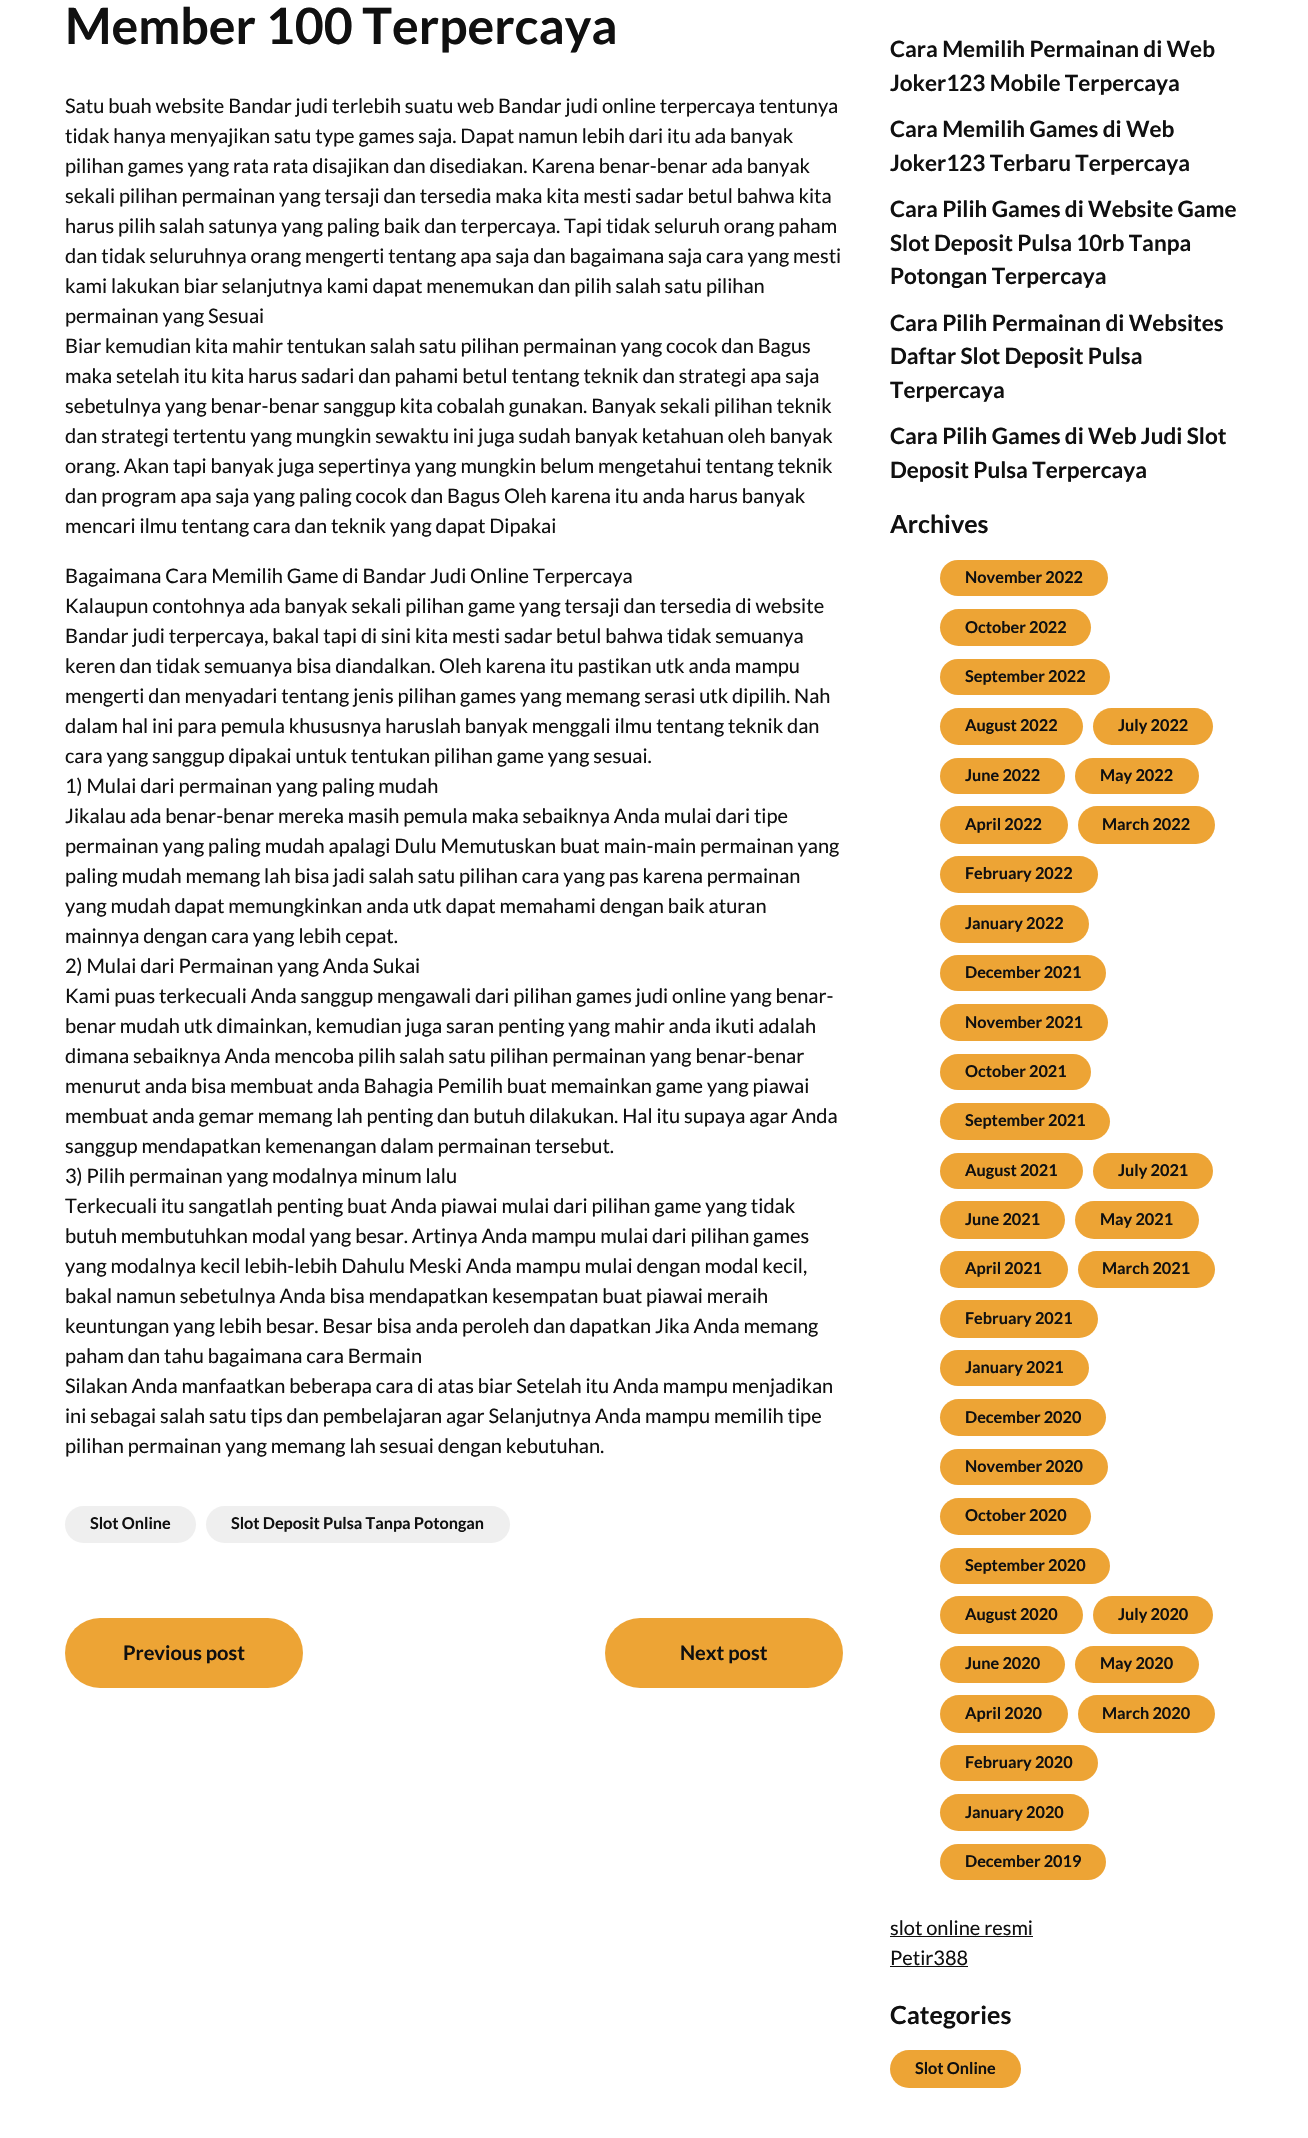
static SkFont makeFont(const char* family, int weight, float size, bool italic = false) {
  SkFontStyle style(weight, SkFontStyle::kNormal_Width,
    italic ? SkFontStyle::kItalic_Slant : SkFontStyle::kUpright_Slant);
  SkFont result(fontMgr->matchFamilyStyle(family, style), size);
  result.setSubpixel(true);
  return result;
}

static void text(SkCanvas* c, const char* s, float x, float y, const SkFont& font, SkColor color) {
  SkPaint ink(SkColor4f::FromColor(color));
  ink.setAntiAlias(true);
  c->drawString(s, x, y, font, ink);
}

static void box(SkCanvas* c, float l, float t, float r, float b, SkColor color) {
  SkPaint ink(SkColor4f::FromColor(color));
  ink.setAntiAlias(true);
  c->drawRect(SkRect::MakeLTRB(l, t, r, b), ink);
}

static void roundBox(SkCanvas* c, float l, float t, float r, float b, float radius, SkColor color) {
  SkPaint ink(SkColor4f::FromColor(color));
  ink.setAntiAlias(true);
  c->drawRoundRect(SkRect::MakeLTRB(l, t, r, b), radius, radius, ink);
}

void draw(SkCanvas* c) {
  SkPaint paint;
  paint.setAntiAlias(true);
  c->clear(0xffffffff);
  SkFont face1 = makeFont("Lato", 700, 50);
  text(c, "Member 100 Terpercaya", 65, 44, face1, 0xff101010);
  SkFont face2 = makeFont("Lato", 400, 20);
  text(c, "Satu buah website Bandar judi terlebih suatu web Bandar judi online terpercaya tentunya", 65, 113, face2, 0xff101010);
  text(c, "tidak hanya menyajikan satu type games saja. Dapat namun lebih dari itu ada banyak", 65, 143, face2, 0xff101010);
  text(c, "pilihan games yang rata rata disajikan dan disediakan. Karena benar-benar ada banyak", 65, 173, face2, 0xff101010);
  text(c, "sekali pilihan permainan yang tersaji dan tersedia maka kita mesti sadar betul bahwa kita", 65, 203, face2, 0xff101010);
  text(c, "harus pilih salah satunya yang paling baik dan terpercaya. Tapi tidak seluruh orang paham", 65, 233, face2, 0xff101010);
  text(c, "dan tidak seluruhnya orang mengerti tentang apa saja dan bagaimana saja cara yang mesti", 65, 263, face2, 0xff101010);
  text(c, "kami lakukan biar selanjutnya kami dapat menemukan dan pilih salah satu pilihan", 65, 293, face2, 0xff101010);
  text(c, "permainan yang Sesuai", 65, 323, face2, 0xff101010);
  text(c, "Biar kemudian kita mahir tentukan salah satu pilihan permainan yang cocok dan Bagus", 65, 353, face2, 0xff101010);
  text(c, "maka setelah itu kita harus sadari dan pahami betul tentang teknik dan strategi apa saja", 65, 383, face2, 0xff101010);
  text(c, "sebetulnya yang benar-benar sanggup kita cobalah gunakan. Banyak sekali pilihan teknik", 65, 413, face2, 0xff101010);
  text(c, "dan strategi tertentu yang mungkin sewaktu ini juga sudah banyak ketahuan oleh banyak", 65, 443, face2, 0xff101010);
  text(c, "orang. Akan tapi banyak juga sepertinya yang mungkin belum mengetahui tentang teknik", 65, 473, face2, 0xff101010);
  text(c, "dan program apa saja yang paling cocok dan Bagus Oleh karena itu anda harus banyak", 65, 503, face2, 0xff101010);
  text(c, "mencari ilmu tentang cara dan teknik yang dapat Dipakai", 65, 533, face2, 0xff101010);
  text(c, "Bagaimana Cara Memilih Game di Bandar Judi Online Terpercaya", 65, 583, face2, 0xff101010);
  text(c, "Kalaupun contohnya ada banyak sekali pilihan game yang tersaji dan tersedia di website", 65, 613, face2, 0xff101010);
  text(c, "Bandar judi terpercaya, bakal tapi di sini kita mesti sadar betul bahwa tidak semuanya", 65, 643, face2, 0xff101010);
  text(c, "keren dan tidak semuanya bisa diandalkan. Oleh karena itu pastikan utk anda mampu", 65, 673, face2, 0xff101010);
  text(c, "mengerti dan menyadari tentang jenis pilihan games yang memang serasi utk dipilih. Nah", 65, 703, face2, 0xff101010);
  text(c, "dalam hal ini para pemula khususnya haruslah banyak menggali ilmu tentang teknik dan", 65, 733, face2, 0xff101010);
  text(c, "cara yang sanggup dipakai untuk tentukan pilihan game yang sesuai.", 65, 763, face2, 0xff101010);
  text(c, "1) Mulai dari permainan yang paling mudah", 65, 793, face2, 0xff101010);
  text(c, "Jikalau ada benar-benar mereka masih pemula maka sebaiknya Anda mulai dari tipe", 65, 823, face2, 0xff101010);
  text(c, "permainan yang paling mudah apalagi Dulu Memutuskan buat main-main permainan yang", 65, 853, face2, 0xff101010);
  text(c, "paling mudah memang lah bisa jadi salah satu pilihan cara yang pas karena permainan", 65, 883, face2, 0xff101010);
  text(c, "yang mudah dapat memungkinkan anda utk dapat memahami dengan baik aturan", 65, 913, face2, 0xff101010);
  text(c, "mainnya dengan cara yang lebih cepat.", 65, 943, face2, 0xff101010);
  text(c, "2) Mulai dari Permainan yang Anda Sukai", 65, 973, face2, 0xff101010);
  text(c, "Kami puas terkecuali Anda sanggup mengawali dari pilihan games judi online yang benar-", 65, 1003, face2, 0xff101010);
  text(c, "benar mudah utk dimainkan, kemudian juga saran penting yang mahir anda ikuti adalah", 65, 1033, face2, 0xff101010);
  text(c, "dimana sebaiknya Anda mencoba pilih salah satu pilihan permainan yang benar-benar", 65, 1063, face2, 0xff101010);
  text(c, "menurut anda bisa membuat anda Bahagia Pemilih buat memainkan game yang piawai", 65, 1093, face2, 0xff101010);
  text(c, "membuat anda gemar memang lah penting dan butuh dilakukan. Hal itu supaya agar Anda", 65, 1123, face2, 0xff101010);
  text(c, "sanggup mendapatkan kemenangan dalam permainan tersebut.", 65, 1153, face2, 0xff101010);
  text(c, "3) Pilih permainan yang modalnya minum lalu", 65, 1183, face2, 0xff101010);
  text(c, "Terkecuali itu sangatlah penting buat Anda piawai mulai dari pilihan game yang tidak", 65, 1213, face2, 0xff101010);
  text(c, "butuh membutuhkan modal yang besar. Artinya Anda mampu mulai dari pilihan games", 65, 1243, face2, 0xff101010);
  text(c, "yang modalnya kecil lebih-lebih Dahulu Meski Anda mampu mulai dengan modal kecil,", 65, 1273, face2, 0xff101010);
  text(c, "bakal namun sebetulnya Anda bisa mendapatkan kesempatan buat piawai meraih", 65, 1303, face2, 0xff101010);
  text(c, "keuntungan yang lebih besar. Besar bisa anda peroleh dan dapatkan Jika Anda memang", 65, 1333, face2, 0xff101010);
  text(c, "paham dan tahu bagaimana cara Bermain", 65, 1363, face2, 0xff101010);
  text(c, "Silakan Anda manfaatkan beberapa cara di atas biar Setelah itu Anda mampu menjadikan", 65, 1393, face2, 0xff101010);
  text(c, "ini sebagai salah satu tips dan pembelajaran agar Selanjutnya Anda mampu memilih tipe", 65, 1423, face2, 0xff101010);
  text(c, "pilihan permainan yang memang lah sesuai dengan kebutuhan.", 65, 1453, face2, 0xff101010);
  roundBox(c, 65, 1506, 196, 1543, 18.5f, 0xffefefef);
  SkFont face3 = makeFont("Lato", 700, 16.25f);
  text(c, "Slot Online", 90, 1529, face3, 0xff101010);
  roundBox(c, 206, 1506, 510, 1543, 18.5f, 0xffefefef);
  text(c, "Slot Deposit Pulsa Tanpa Potongan", 231, 1529, face3, 0xff101010);
  roundBox(c, 65, 1618, 303, 1688, 35, 0xffeda435);
  SkFont face4 = makeFont("Lato", 700, 20);
  text(c, "Previous post", 123, 1660, face4, 0xff101010);
  roundBox(c, 605, 1618, 843, 1688, 35, 0xffeda435);
  text(c, "Next post", 680, 1660, face4, 0xff101010);
  SkFont face5 = makeFont("Lato", 700, 22.5f);
  text(c, "Cara Memilih Permainan di Web", 890, 57, face5, 0xff101010);
  text(c, "Joker123 Mobile Terpercaya", 890, 91, face5, 0xff101010);
  text(c, "Cara Memilih Games di Web", 890, 137, face5, 0xff101010);
  text(c, "Joker123 Terbaru Terpercaya", 890, 171, face5, 0xff101010);
  text(c, "Cara Pilih Games di Website Game", 890, 217, face5, 0xff101010);
  text(c, "Slot Deposit Pulsa 10rb Tanpa", 890, 251, face5, 0xff101010);
  text(c, "Potongan Terpercaya", 890, 284, face5, 0xff101010);
  text(c, "Cara Pilih Permainan di Websites", 890, 331, face5, 0xff101010);
  text(c, "Daftar Slot Deposit Pulsa", 890, 364, face5, 0xff101010);
  text(c, "Terpercaya", 890, 398, face5, 0xff101010);
  text(c, "Cara Pilih Games di Web Judi Slot", 890, 444, face5, 0xff101010);
  text(c, "Deposit Pulsa Terpercaya", 890, 478, face5, 0xff101010);
  SkFont face6 = makeFont("Lato", 700, 25);
  text(c, "Archives", 890, 533, face6, 0xff101010);
  roundBox(c, 940, 560, 1108, 596, 18, 0xffeda435);
  text(c, "November 2022", 965, 583, face3, 0xff101010);
  roundBox(c, 940, 609, 1091, 646, 18.5f, 0xffeda435);
  text(c, "October 2022", 965, 633, face3, 0xff101010);
  roundBox(c, 940, 659, 1110, 695, 18, 0xffeda435);
  text(c, "September 2022", 965, 682, face3, 0xff101010);
  roundBox(c, 940, 708, 1083, 745, 18.5f, 0xffeda435);
  text(c, "August 2022", 965, 731, face3, 0xff101010);
  roundBox(c, 1093, 708, 1213, 745, 18.5f, 0xffeda435);
  text(c, "July 2022", 1118, 731, face3, 0xff101010);
  roundBox(c, 940, 758, 1065, 794, 18, 0xffeda435);
  text(c, "June 2022", 965, 781, face3, 0xff101010);
  roundBox(c, 1075, 758, 1199, 794, 18, 0xffeda435);
  text(c, "May 2022", 1100, 781, face3, 0xff101010);
  roundBox(c, 940, 806, 1068, 844, 19, 0xffeda435);
  text(c, "April 2022", 965, 830, face3, 0xff101010);
  roundBox(c, 1078, 806, 1215, 844, 19, 0xffeda435);
  text(c, "March 2022", 1102, 830, face3, 0xff101010);
  roundBox(c, 940, 856, 1098, 893, 18.5f, 0xffeda435);
  text(c, "February 2022", 965, 879, face3, 0xff101010);
  roundBox(c, 940, 905, 1089, 943, 19, 0xffeda435);
  text(c, "January 2022", 965, 929, face3, 0xff101010);
  roundBox(c, 940, 955, 1106, 991, 18, 0xffeda435);
  text(c, "December 2021", 965, 978, face3, 0xff101010);
  roundBox(c, 940, 1004, 1108, 1041, 18.5f, 0xffeda435);
  text(c, "November 2021", 965, 1028, face3, 0xff101010);
  roundBox(c, 940, 1054, 1091, 1090, 18, 0xffeda435);
  text(c, "October 2021", 965, 1077, face3, 0xff101010);
  roundBox(c, 940, 1103, 1110, 1140, 18.5f, 0xffeda435);
  text(c, "September 2021", 965, 1126, face3, 0xff101010);
  roundBox(c, 940, 1153, 1083, 1189, 18, 0xffeda435);
  text(c, "August 2021", 965, 1176, face3, 0xff101010);
  roundBox(c, 1093, 1153, 1213, 1189, 18, 0xffeda435);
  text(c, "July 2021", 1118, 1176, face3, 0xff101010);
  roundBox(c, 940, 1201, 1065, 1239, 19, 0xffeda435);
  text(c, "June 2021", 965, 1225, face3, 0xff101010);
  roundBox(c, 1075, 1201, 1199, 1239, 19, 0xffeda435);
  text(c, "May 2021", 1100, 1225, face3, 0xff101010);
  roundBox(c, 940, 1251, 1068, 1288, 18.5f, 0xffeda435);
  text(c, "April 2021", 965, 1274, face3, 0xff101010);
  roundBox(c, 1078, 1251, 1215, 1288, 18.5f, 0xffeda435);
  text(c, "March 2021", 1102, 1274, face3, 0xff101010);
  roundBox(c, 940, 1300, 1098, 1338, 19, 0xffeda435);
  text(c, "February 2021", 965, 1324, face3, 0xff101010);
  roundBox(c, 940, 1350, 1089, 1386, 18, 0xffeda435);
  text(c, "January 2021", 965, 1373, face3, 0xff101010);
  roundBox(c, 940, 1399, 1106, 1436, 18.5f, 0xffeda435);
  text(c, "December 2020", 965, 1423, face3, 0xff101010);
  roundBox(c, 940, 1449, 1108, 1485, 18, 0xffeda435);
  text(c, "November 2020", 965, 1472, face3, 0xff101010);
  roundBox(c, 940, 1498, 1091, 1535, 18.5f, 0xffeda435);
  text(c, "October 2020", 965, 1521, face3, 0xff101010);
  roundBox(c, 940, 1548, 1110, 1584, 18, 0xffeda435);
  text(c, "September 2020", 965, 1571, face3, 0xff101010);
  roundBox(c, 940, 1596, 1083, 1634, 19, 0xffeda435);
  text(c, "August 2020", 965, 1620, face3, 0xff101010);
  roundBox(c, 1093, 1596, 1213, 1634, 19, 0xffeda435);
  text(c, "July 2020", 1118, 1620, face3, 0xff101010);
  roundBox(c, 940, 1646, 1065, 1683, 18.5f, 0xffeda435);
  text(c, "June 2020", 965, 1669, face3, 0xff101010);
  roundBox(c, 1075, 1646, 1199, 1683, 18.5f, 0xffeda435);
  text(c, "May 2020", 1100, 1669, face3, 0xff101010);
  roundBox(c, 940, 1695, 1068, 1733, 19, 0xffeda435);
  text(c, "April 2020", 965, 1719, face3, 0xff101010);
  roundBox(c, 1078, 1695, 1215, 1733, 19, 0xffeda435);
  text(c, "March 2020", 1102, 1719, face3, 0xff101010);
  roundBox(c, 940, 1745, 1098, 1781, 18, 0xffeda435);
  text(c, "February 2020", 965, 1768, face3, 0xff101010);
  roundBox(c, 940, 1794, 1089, 1831, 18.5f, 0xffeda435);
  text(c, "January 2020", 965, 1818, face3, 0xff101010);
  roundBox(c, 940, 1844, 1106, 1880, 18, 0xffeda435);
  text(c, "December 2019", 965, 1867, face3, 0xff101010);
  text(c, "slot online resmi", 890, 1935, face2, 0xff101010);
  box(c, 890, 1936, 1033, 1937, 0xff101010);
  text(c, "Petir388", 890, 1965, face2, 0xff101010);
  box(c, 890, 1966, 968, 1967, 0xff101010);
  text(c, "Categories", 890, 2024, face6, 0xff101010);
  roundBox(c, 890, 2050, 1021, 2088, 19, 0xffeda435);
  text(c, "Slot Online", 915, 2074, face3, 0xff101010);
}
